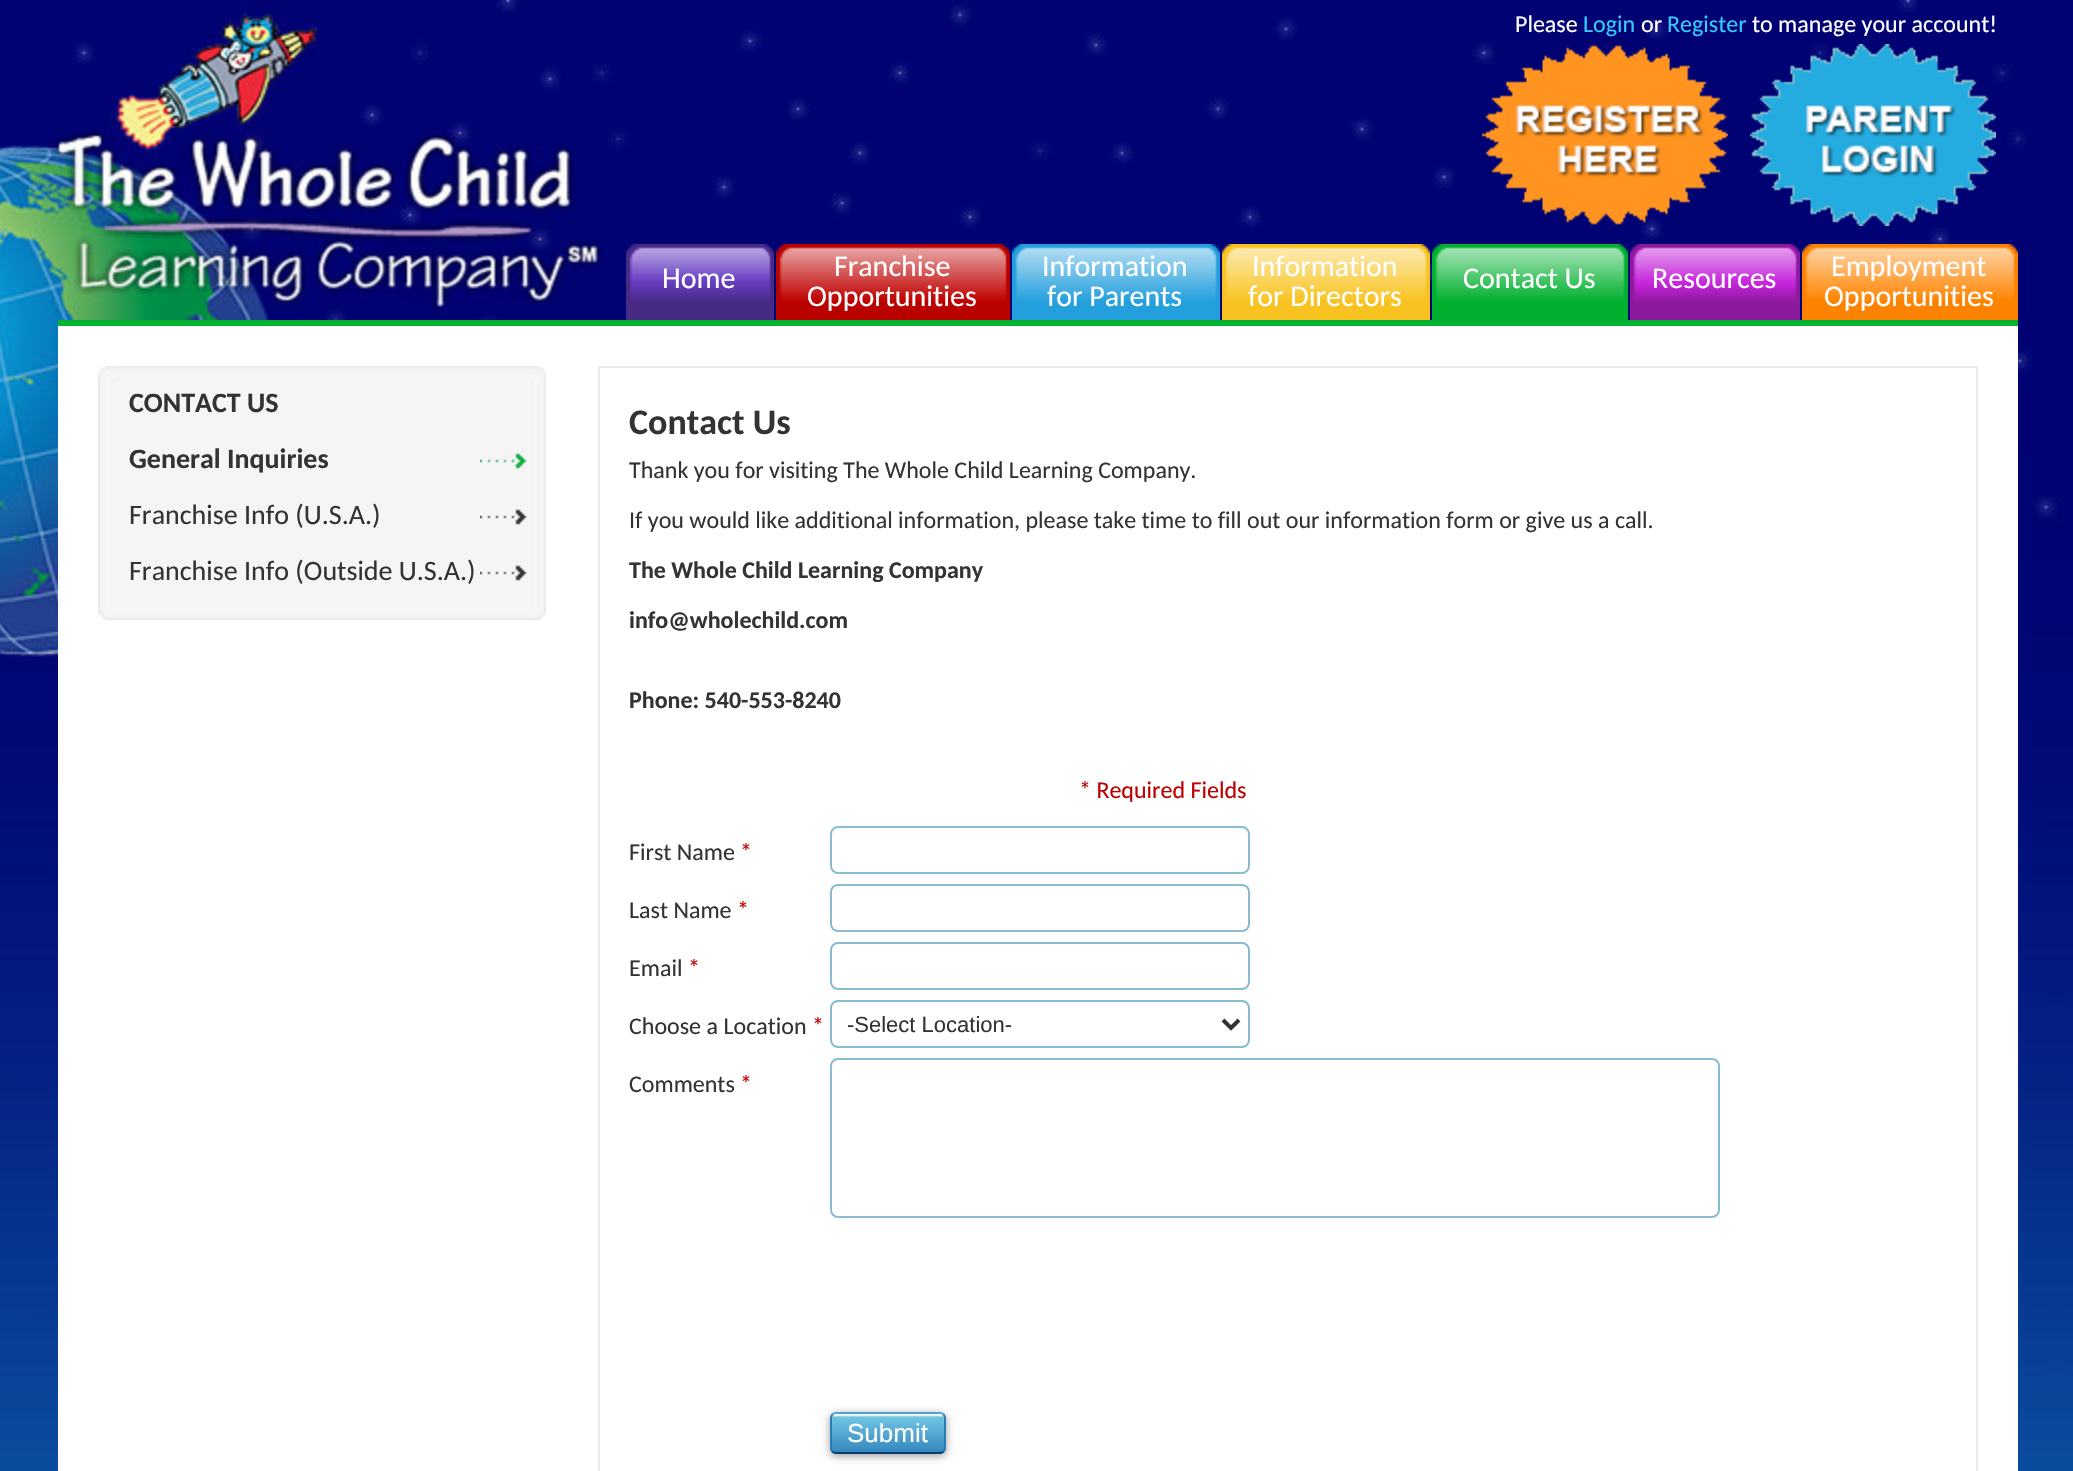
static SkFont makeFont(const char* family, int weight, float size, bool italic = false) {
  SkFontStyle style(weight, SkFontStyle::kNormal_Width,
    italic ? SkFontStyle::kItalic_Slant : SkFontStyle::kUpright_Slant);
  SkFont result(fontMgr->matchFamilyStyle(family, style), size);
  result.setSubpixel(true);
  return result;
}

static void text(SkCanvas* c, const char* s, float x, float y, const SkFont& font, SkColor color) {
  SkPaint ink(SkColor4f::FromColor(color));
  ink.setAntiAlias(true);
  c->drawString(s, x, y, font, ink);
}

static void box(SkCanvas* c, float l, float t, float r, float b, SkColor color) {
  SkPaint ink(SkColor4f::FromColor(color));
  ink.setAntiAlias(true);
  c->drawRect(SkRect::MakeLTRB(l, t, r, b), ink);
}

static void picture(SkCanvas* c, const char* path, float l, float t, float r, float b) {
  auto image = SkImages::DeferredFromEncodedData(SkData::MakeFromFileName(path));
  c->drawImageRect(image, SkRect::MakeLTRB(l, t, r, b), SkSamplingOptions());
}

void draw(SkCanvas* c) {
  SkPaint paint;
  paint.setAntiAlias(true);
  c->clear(0xffffffff);
  picture(c, "img_01.png", 0, 657, 2073, 1471);
  picture(c, "img_02.png", 0, 0, 2073, 657);
  SkFont face1 = makeFont("Carlito", 400, 24);
  text(c, "Please", 1515, 32, face1, 0xffffffff);
  text(c, "Login", 1583, 32, face1, 0xff33ccff);
  text(c, "or", 1641, 32, face1, 0xffffffff);
  text(c, "Register", 1667, 32, face1, 0xff33ccff);
  text(c, "to manage your account!", 1752, 32, face1, 0xffffffff);
  picture(c, "img_03.png", 1482, 45, 1728, 225);
  picture(c, "img_04.png", 1750, 44, 1996, 226);
  picture(c, "img_05.png", 626, 244, 646, 320);
  picture(c, "img_06.png", 646, 244, 774, 320);
  SkFont face2 = makeFont("Carlito", 400, 30);
  text(c, "Home", 662, 288, face2, 0xffffffff);
  picture(c, "img_07.png", 776, 244, 796, 320);
  picture(c, "img_08.png", 796, 244, 1010, 320);
  text(c, "Franchise", 834, 276, face2, 0xffffffff);
  text(c, "Opportunities", 807, 306, face2, 0xffffffff);
  picture(c, "img_09.png", 1012, 244, 1032, 320);
  picture(c, "img_10.png", 1032, 244, 1220, 320);
  text(c, "Information", 1042, 276, face2, 0xffffffff);
  text(c, "for Parents", 1047, 306, face2, 0xffffffff);
  picture(c, "img_11.png", 1222, 244, 1242, 320);
  picture(c, "img_12.png", 1242, 244, 1430, 320);
  text(c, "Information", 1252, 276, face2, 0xffffffff);
  text(c, "for Directors", 1248, 306, face2, 0xffffffff);
  picture(c, "img_13.png", 1432, 244, 1452, 320);
  picture(c, "img_14.png", 1452, 244, 1628, 320);
  text(c, "Contact Us", 1463, 288, face2, 0xffffffff);
  picture(c, "img_15.png", 1630, 244, 1650, 320);
  picture(c, "img_16.png", 1650, 244, 1800, 320);
  text(c, "Resources", 1652, 288, face2, 0xffffffff);
  picture(c, "img_17.png", 1802, 244, 1822, 320);
  picture(c, "img_18.png", 1822, 244, 2018, 320);
  text(c, "Employment", 1831, 276, face2, 0xffffffff);
  text(c, "Opportunities", 1824, 306, face2, 0xffffffff);
  box(c, 58, 320, 2018, 326, 0xff04b132);
  box(c, 58, 326, 2018, 1471, 0xffffffff);
  picture(c, "img_19.png", 98, 366, 546, 426);
  picture(c, "img_20.png", 98, 426, 546, 620);
  SkFont face3 = makeFont("Carlito", 700, 28);
  text(c, "CONTACT US", 129, 412, face3, 0xff333333);
  picture(c, "img_21.png", 480, 453, 527, 469);
  text(c, "General Inquiries", 129, 468, face3, 0xff333333);
  picture(c, "img_22.png", 480, 509, 527, 525);
  SkFont face4 = makeFont("Carlito", 400, 28);
  text(c, "Franchise Info (U.S.A.)", 129, 524, face4, 0xff333333);
  picture(c, "img_22.png", 480, 565, 527, 581);
  text(c, "Franchise Info (Outside U.S.A.)", 129, 580, face4, 0xff333333);
  paint.setStyle(SkPaint::kStroke_Style);
  paint.setStrokeWidth(2);
  paint.setColor(0xffeaeaea);
  c->drawRect(SkRect::MakeLTRB(599, 367, 1977, 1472), paint);
  SkFont face5 = makeFont("Carlito", 700, 36);
  text(c, "Contact Us", 629, 434, face5, 0xff333333);
  text(c, "Thank you for visiting The Whole Child Learning Company.", 629, 478, face1, 0xff333333);
  text(c, "If you would like additional information, please take time to fill out our information form or give us a call.", 629, 528, face1, 0xff333333);
  SkFont face6 = makeFont("Carlito", 700, 24);
  text(c, "The Whole Child Learning Company", 629, 578, face6, 0xff333333);
  text(c, "info@wholechild.com", 629, 628, face6, 0xff333333);
  text(c, "Phone: 540-553-8240", 629, 708, face6, 0xff333333);
  text(c, "* Required Fields", 1079, 798, face1, 0xffc00000);
  text(c, "First Name", 629, 860, face1, 0xff333333);
  text(c, "*", 740, 860, face1, 0xffc00000);
  paint.setColor(0xff89bad3);
  c->drawRoundRect(SkRect::MakeLTRB(831, 827, 1249, 873), 7, 7, paint);
  text(c, "Last Name", 629, 918, face1, 0xff333333);
  text(c, "*", 737, 918, face1, 0xffc00000);
  c->drawRoundRect(SkRect::MakeLTRB(831, 885, 1249, 931), 7, 7, paint);
  text(c, "Email", 629, 976, face1, 0xff333333);
  text(c, "*", 688, 976, face1, 0xffc00000);
  c->drawRoundRect(SkRect::MakeLTRB(831, 943, 1249, 989), 7, 7, paint);
  text(c, "Choose a Location", 629, 1034, face1, 0xff333333);
  text(c, "*", 812, 1034, face1, 0xffc00000);
  c->drawRoundRect(SkRect::MakeLTRB(831, 1001, 1249, 1047), 7, 7, paint);
  paint.setStrokeWidth(4);
  paint.setColor(0xff333333);
  c->drawPath(SkPathBuilder().moveTo(1223, 1020).lineTo(1231, 1028).lineTo(1239, 1020).detach(), paint);
  SkFont face7 = makeFont("Liberation Sans", 400, 22);
  text(c, "-Select Location-", 847, 1032, face7, 0xff333333);
  text(c, "Comments", 629, 1092, face1, 0xff333333);
  text(c, "*", 740, 1092, face1, 0xffc00000);
  paint.setStrokeWidth(2);
  paint.setColor(0xff89bad3);
  c->drawRoundRect(SkRect::MakeLTRB(831, 1059, 1719, 1217), 7, 7, paint);
  paint.setStyle(SkPaint::kFill_Style);
  paint.setColor(0x66000000);
  paint.setMaskFilter(SkMaskFilter::MakeBlur(kNormal_SkBlurStyle, 4));
  c->drawRoundRect(SkRect::MakeLTRB(830, 1414, 946, 1456), 6, 6, paint);
  paint.setMaskFilter(nullptr);
  picture(c, "img_23.png", 830, 1414, 946, 1454);
  paint.setStyle(SkPaint::kStroke_Style);
  paint.setColor(0xff50a3c8);
  c->drawPath(SkPathBuilder().moveTo(832.5f, 1414.5f).cubicTo(833.5f, 1413.5f, 834.5f, 1413, 836, 1413).lineTo(940, 1413).cubicTo(941.5f, 1413, 942.5f, 1413.5f, 943.5f, 1414.5f).detach(), paint);
  paint.setColor(0xff297cb4);
  c->drawPath(SkPathBuilder().moveTo(943.5f, 1414.5f).cubicTo(944.5f, 1415.5f, 945, 1416.5f, 945, 1418).lineTo(945, 1448).cubicTo(945, 1449.5f, 944.5f, 1450.5f, 943.5f, 1451.5f).detach(), paint);
  paint.setColor(0xff083f6f);
  c->drawPath(SkPathBuilder().moveTo(943.5f, 1451.5f).cubicTo(942.5f, 1452.5f, 941.5f, 1453, 940, 1453).lineTo(836, 1453).cubicTo(834.5f, 1453, 833.5f, 1452.5f, 832.5f, 1451.5f).detach(), paint);
  paint.setColor(0xff297cb4);
  c->drawPath(SkPathBuilder().moveTo(832.5f, 1451.5f).cubicTo(831.5f, 1450.5f, 831, 1449.5f, 831, 1448).lineTo(831, 1418).cubicTo(831, 1416.5f, 831.5f, 1415.5f, 832.5f, 1414.5f).detach(), paint);
  SkFont face8 = makeFont("Liberation Sans", 400, 26);
  text(c, "Submit", 847, 1442, face8, 0xffffffff);
}
